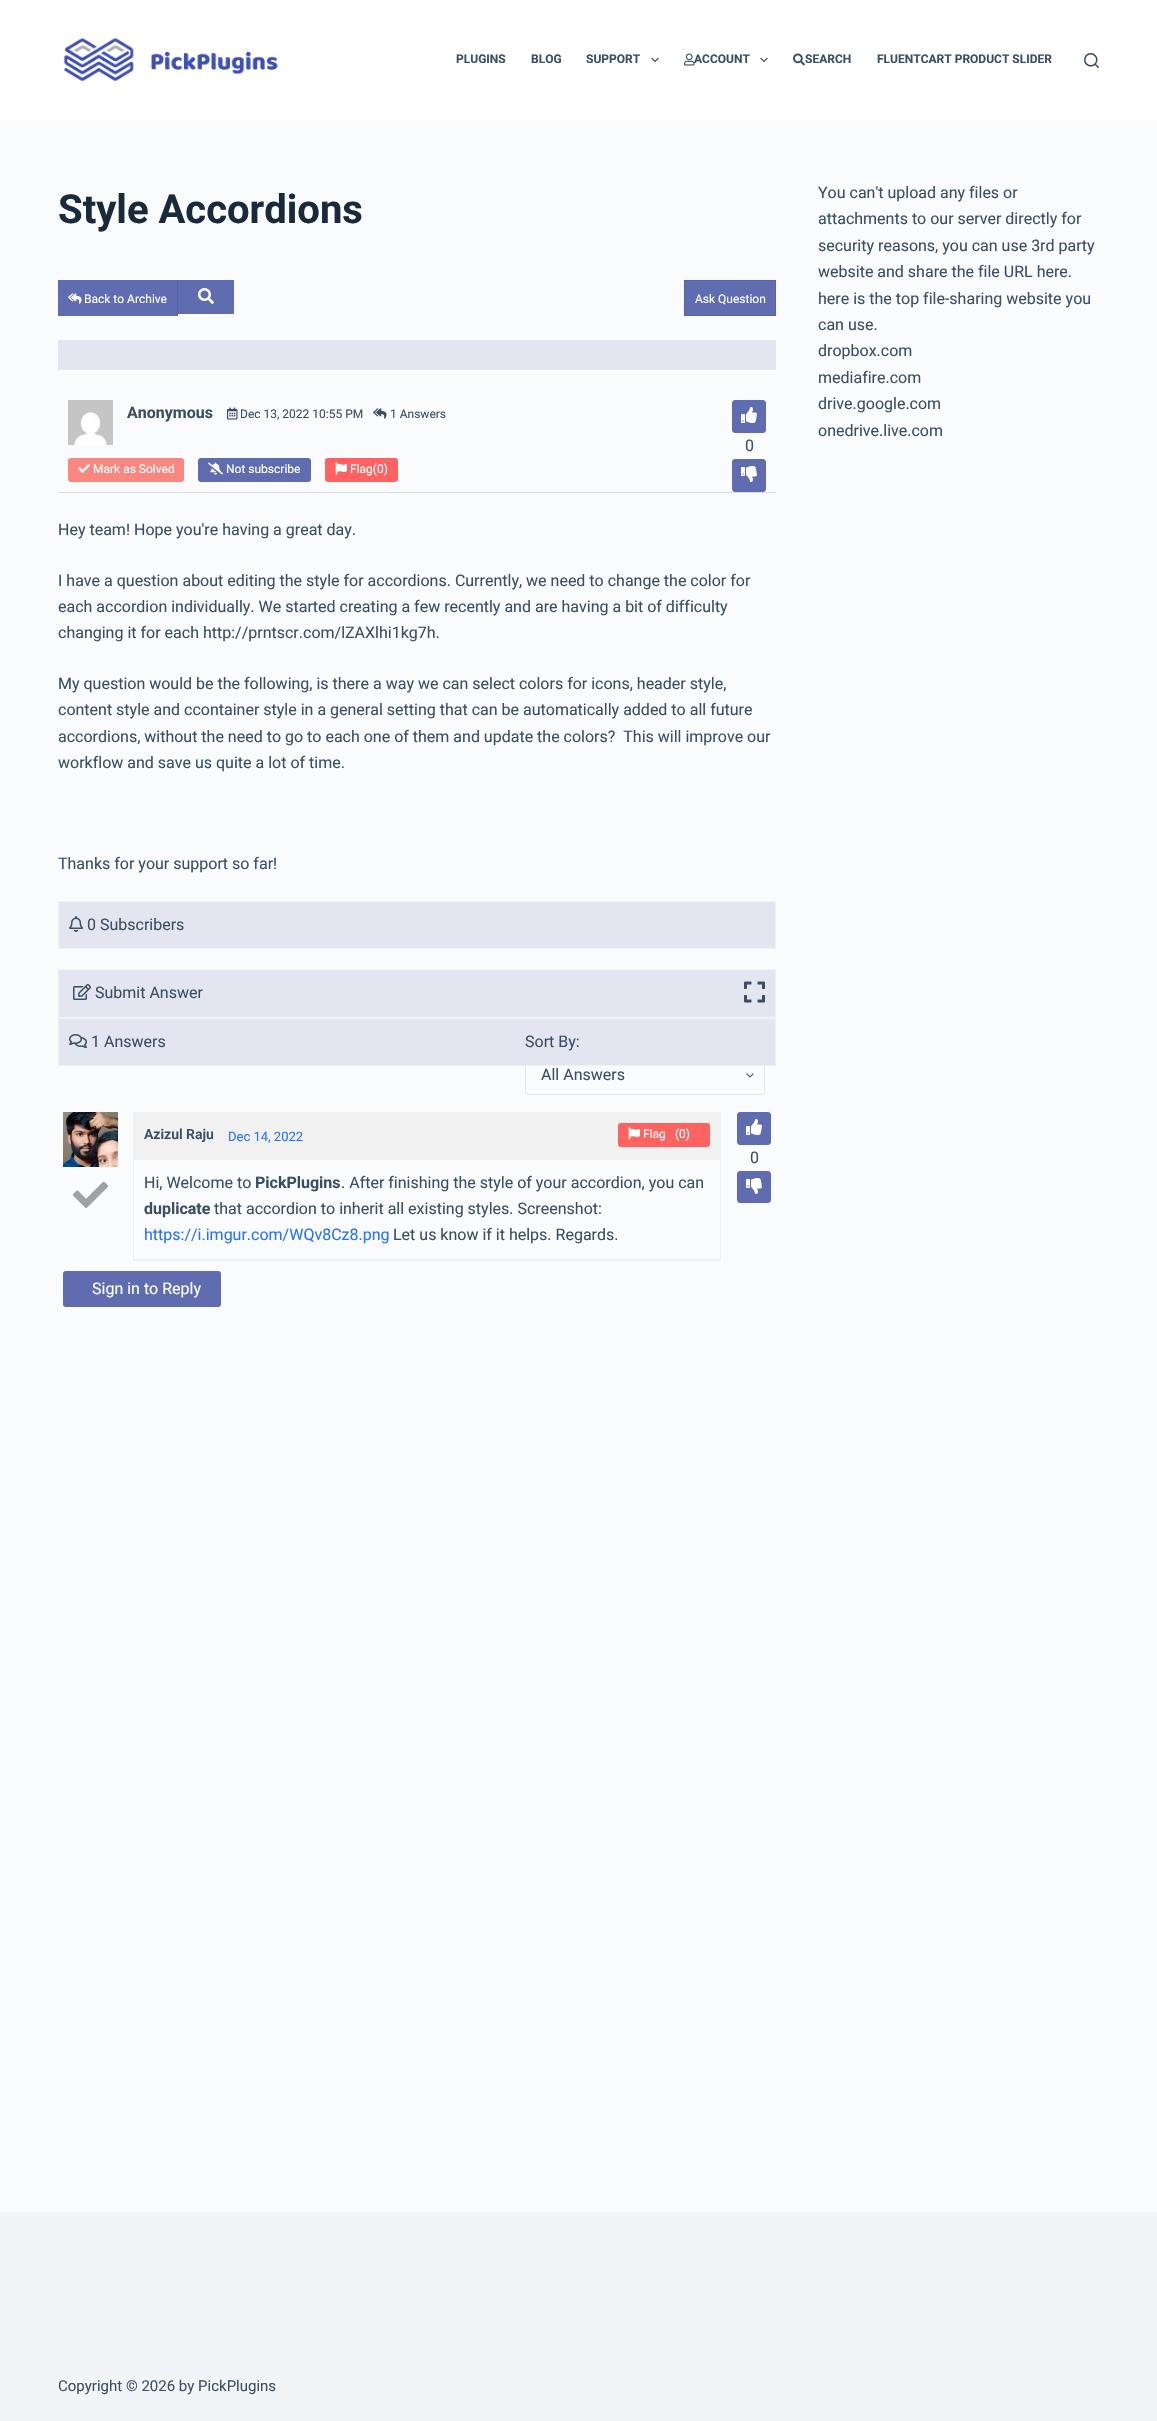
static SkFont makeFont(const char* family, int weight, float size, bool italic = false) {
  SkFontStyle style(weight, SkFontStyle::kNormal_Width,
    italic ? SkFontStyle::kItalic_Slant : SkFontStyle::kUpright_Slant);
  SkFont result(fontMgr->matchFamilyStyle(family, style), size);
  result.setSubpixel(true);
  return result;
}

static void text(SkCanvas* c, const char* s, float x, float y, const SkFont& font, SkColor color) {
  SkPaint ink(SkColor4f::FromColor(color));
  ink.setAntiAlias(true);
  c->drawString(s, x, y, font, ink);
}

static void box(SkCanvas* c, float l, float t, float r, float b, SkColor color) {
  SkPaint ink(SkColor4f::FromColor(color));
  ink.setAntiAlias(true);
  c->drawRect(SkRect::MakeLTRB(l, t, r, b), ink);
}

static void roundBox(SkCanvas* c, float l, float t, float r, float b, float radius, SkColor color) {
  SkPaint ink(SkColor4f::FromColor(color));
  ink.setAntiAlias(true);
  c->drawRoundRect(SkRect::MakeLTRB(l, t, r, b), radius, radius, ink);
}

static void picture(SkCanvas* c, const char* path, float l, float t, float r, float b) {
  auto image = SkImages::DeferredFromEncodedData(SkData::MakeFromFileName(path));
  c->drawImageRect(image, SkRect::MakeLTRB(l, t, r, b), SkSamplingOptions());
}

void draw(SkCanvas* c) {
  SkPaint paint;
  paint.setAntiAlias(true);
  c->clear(0xfffafbfc);
  box(c, 0, 0, 1157, 120, 0xffffffff);
  picture(c, "img_01.png", 64, 37, 278, 82);
  SkFont face1 = makeFont("Roboto", 700, 12);
  text(c, "PLUGINS", 456, 63, face1, 0xff3a4f66);
  text(c, "BLOG", 531, 63, face1, 0xff3a4f66);
  text(c, "SUPPORT", 586, 63, face1, 0xff3a4f66);
  picture(c, "img_02.png", 651, 57, 659, 63);
  picture(c, "img_03.png", 684, 53, 695, 66);
  text(c, "ACCOUNT", 694, 63, face1, 0xff3a4f66);
  picture(c, "img_02.png", 760, 57, 768, 63);
  picture(c, "img_04.png", 793, 53, 805, 66);
  text(c, "SEARCH", 805, 63, face1, 0xff3a4f66);
  text(c, "FLUENTCART PRODUCT SLIDER", 877, 63, face1, 0xff3a4f66);
  picture(c, "img_05.png", 1084, 53, 1099, 68);
  SkFont face2 = makeFont("Roboto", 700, 40);
  text(c, "Style Accordions", 58, 223, face2, 0xff192a3d);
  box(c, 58, 280, 177, 316, 0xff5f6caf);
  box(c, 177, 280, 178, 316, 0xff5864a3);
  picture(c, "img_06.png", 68, 293, 82, 304);
  SkFont face3 = makeFont("Roboto", 400, 12);
  text(c, "Back to Archive", 84, 303, face3, 0xffffffff);
  box(c, 178, 280, 234, 314, 0xff5f6caf);
  picture(c, "img_07.png", 198, 288, 214, 304);
  paint.setColor(0xff5f6caf);
  c->drawRect(SkRect::MakeLTRB(684.5f, 280.5f, 775.5f, 315.5f), paint);
  paint.setStyle(SkPaint::kStroke_Style);
  paint.setStrokeWidth(1);
  paint.setColor(0xff5864a3);
  c->drawRect(SkRect::MakeLTRB(684.5f, 280.5f, 775.5f, 315.5f), paint);
  text(c, "Ask Question", 695, 303, face3, 0xffffffff);
  box(c, 58, 340, 776, 370, 0xffe3e6f0);
  box(c, 58, 492, 776, 493, 0xffdddddd);
  picture(c, "img_08.png", 68, 400, 113, 445);
  SkFont face4 = makeFont("Roboto", 700, 16);
  text(c, "Anonymous", 127, 418, face4, 0xff3a4f66);
  picture(c, "img_09.png", 227, 407, 238, 420);
  text(c, "Dec 13, 2022 10:55 PM", 240, 418, face3, 0xff3a4f66);
  picture(c, "img_10.png", 373, 408, 387, 419);
  text(c, "1 Answers", 390, 418, face3, 0xff3a4f66);
  paint.setStyle(SkPaint::kFill_Style);
  paint.setColor(0xff5f6caf);
  c->drawRoundRect(SkRect::MakeLTRB(732.5f, 400.5f, 765.5f, 432.5f), 2.5f, 2.5f, paint);
  paint.setStyle(SkPaint::kStroke_Style);
  c->drawRoundRect(SkRect::MakeLTRB(732.5f, 400.5f, 765.5f, 432.5f), 2.5f, 2.5f, paint);
  picture(c, "img_11.png", 741, 407, 757, 423);
  SkFont face5 = makeFont("Roboto", 400, 16);
  text(c, "0", 745, 451, face5, 0xff3a4f66);
  paint.setStyle(SkPaint::kFill_Style);
  c->drawRoundRect(SkRect::MakeLTRB(732.5f, 459.5f, 765.5f, 491.5f), 2.5f, 2.5f, paint);
  paint.setStyle(SkPaint::kStroke_Style);
  c->drawRoundRect(SkRect::MakeLTRB(732.5f, 459.5f, 765.5f, 491.5f), 2.5f, 2.5f, paint);
  picture(c, "img_12.png", 741, 466, 757, 482);
  roundBox(c, 68, 458, 184, 482, 3, 0xfffa877f);
  picture(c, "img_13.png", 78, 464, 90, 473);
  text(c, "Mark as Solved", 93, 473, face3, 0xffffffff);
  roundBox(c, 198, 458, 311, 482, 3, 0xff5f6caf);
  picture(c, "img_14.png", 208, 462, 223, 475);
  text(c, "Not subscribe", 226, 473, face3, 0xffffffff);
  roundBox(c, 325, 458, 398, 482, 3, 0xffff6361);
  picture(c, "img_15.png", 335, 462, 347, 475);
  text(c, "Flag(0)", 350, 473, face3, 0xffffffff);
  text(c, "Hey team! Hope you're having a great day.", 58, 535, face5, 0xff3a4f66);
  text(c, "I have a question about editing the style for accordions. Currently, we need to change the color for", 58, 586, face5, 0xff3a4f66);
  text(c, "each accordion individually. We started creating a few recently and are having a bit of difficulty", 58, 612, face5, 0xff3a4f66);
  text(c, "changing it for each http://prntscr.com/lZAXlhi1kg7h.", 58, 638, face5, 0xff3a4f66);
  text(c, "My question would be the following, is there a way we can select colors for icons, header style,", 58, 689, face5, 0xff3a4f66);
  text(c, "content style and ccontainer style in a general setting that can be automatically added to all future", 58, 715, face5, 0xff3a4f66);
  text(c, "accordions, without the need to go to each one of them and update the colors?  This will improve our", 58, 742, face5, 0xff3a4f66);
  text(c, "workflow and save us quite a lot of time.", 58, 768, face5, 0xff3a4f66);
  text(c, "Thanks for your support so far!", 58, 869, face5, 0xff3a4f66);
  paint.setStyle(SkPaint::kFill_Style);
  paint.setColor(0xffe3e6f0);
  c->drawRect(SkRect::MakeLTRB(58.5f, 901.5f, 775.5f, 948.5f), paint);
  paint.setStyle(SkPaint::kStroke_Style);
  paint.setColor(0xfff1f1f1);
  c->drawRect(SkRect::MakeLTRB(58.5f, 901.5f, 775.5f, 948.5f), paint);
  picture(c, "img_16.png", 69, 916, 83, 932);
  text(c, "0 Subscribers", 87, 930, face5, 0xff3a4f66);
  paint.setStyle(SkPaint::kFill_Style);
  paint.setColor(0xffe3e6f0);
  c->drawRect(SkRect::MakeLTRB(58.5f, 969.5f, 775.5f, 1017.5f), paint);
  paint.setStyle(SkPaint::kStroke_Style);
  paint.setColor(0xfff1f1f1);
  c->drawRect(SkRect::MakeLTRB(58.5f, 969.5f, 775.5f, 1017.5f), paint);
  picture(c, "img_17.png", 73, 984, 91, 1000);
  text(c, "Submit Answer", 95, 998, face5, 0xff3a4f66);
  picture(c, "img_18.png", 744, 981, 765, 1003);
  paint.setStyle(SkPaint::kFill_Style);
  paint.setColor(0xffe3e6f0);
  c->drawRect(SkRect::MakeLTRB(58.5f, 1018.5f, 775.5f, 1065.5f), paint);
  paint.setStyle(SkPaint::kStroke_Style);
  paint.setColor(0xfff1f1f1);
  c->drawRect(SkRect::MakeLTRB(58.5f, 1018.5f, 775.5f, 1065.5f), paint);
  picture(c, "img_19.png", 69, 1034, 87, 1048);
  text(c, "1 Answers", 91, 1047, face5, 0xff3a4f66);
  text(c, "Sort By:", 525, 1047, face5, 0xff3a4f66);
  picture(c, "img_20.png", 746, 1073, 754, 1078);
  paint.setColor(0xffe1e8ed);
  c->drawRoundRect(SkRect::MakeLTRB(525.5f, 1055.5f, 764.5f, 1094.5f), 2.5f, 2.5f, paint);
  text(c, "All Answers", 541, 1080, face5, 0xff3a4f66);
  picture(c, "img_21.png", 63, 1112, 118, 1167);
  picture(c, "img_22.png", 73, 1181, 108, 1208);
  paint.setColor(0xfff1f1f1);
  c->drawRect(SkRect::MakeLTRB(133.5f, 1112.5f, 720.5f, 1259.5f), paint);
  box(c, 134, 1113, 720, 1160, 0xfff1f1f1);
  SkFont face6 = makeFont("Roboto", 600, 14);
  text(c, "Azizul Raju", 144, 1139, face6, 0xff3a4f66);
  SkFont face7 = makeFont("Roboto", 400, 13);
  text(c, "Dec 14, 2022", 228, 1141, face7, 0xff2872fa);
  roundBox(c, 618, 1123, 710, 1147, 3, 0xffff6361);
  picture(c, "img_15.png", 628, 1127, 640, 1140);
  text(c, "Flag", 643, 1138, face3, 0xffffffff);
  text(c, "(0)", 675, 1138, face3, 0xffffffff);
  text(c, "Hi, Welcome to", 144, 1188, face5, 0xff3a4f66);
  text(c, "PickPlugins", 255, 1188, face4, 0xff3a4f66);
  text(c, ". After finishing the style of your accordion, you can", 341, 1188, face5, 0xff3a4f66);
  text(c, "duplicate", 144, 1214, face4, 0xff3a4f66);
  text(c, "that accordion to inherit all existing styles. Screenshot:", 214, 1214, face5, 0xff3a4f66);
  text(c, "https://i.imgur.com/WQv8Cz8.png", 144, 1240, face5, 0xff2872fa);
  text(c, "Let us know if it helps. Regards.", 393, 1240, face5, 0xff3a4f66);
  paint.setStyle(SkPaint::kFill_Style);
  paint.setColor(0xff5f6caf);
  c->drawRoundRect(SkRect::MakeLTRB(737.5f, 1112.5f, 770.5f, 1144.5f), 2.5f, 2.5f, paint);
  paint.setStyle(SkPaint::kStroke_Style);
  c->drawRoundRect(SkRect::MakeLTRB(737.5f, 1112.5f, 770.5f, 1144.5f), 2.5f, 2.5f, paint);
  picture(c, "img_11.png", 746, 1119, 762, 1135);
  text(c, "0", 750, 1163, face5, 0xff3a4f66);
  paint.setStyle(SkPaint::kFill_Style);
  c->drawRoundRect(SkRect::MakeLTRB(737.5f, 1171.5f, 770.5f, 1202.5f), 2.5f, 2.5f, paint);
  paint.setStyle(SkPaint::kStroke_Style);
  c->drawRoundRect(SkRect::MakeLTRB(737.5f, 1171.5f, 770.5f, 1202.5f), 2.5f, 2.5f, paint);
  picture(c, "img_12.png", 746, 1178, 762, 1194);
  box(c, 133, 1260, 721, 1261, 0xfff1f1f1);
  roundBox(c, 63, 1271, 221, 1307, 3, 0xff5f6caf);
  text(c, "Sign in to Reply", 92, 1294, face5, 0xffffffff);
  text(c, "You can't upload any files or", 818, 198, face5, 0xff3a4f66);
  text(c, "attachments to our server directly for", 818, 224, face5, 0xff3a4f66);
  text(c, "security reasons, you can use 3rd party", 818, 251, face5, 0xff3a4f66);
  text(c, "website and share the file URL here.", 818, 277, face5, 0xff3a4f66);
  text(c, "here is the top file-sharing website you", 818, 304, face5, 0xff3a4f66);
  text(c, "can use.", 818, 330, face5, 0xff3a4f66);
  text(c, "dropbox.com", 818, 356, face5, 0xff3a4f66);
  text(c, "mediafire.com", 818, 383, face5, 0xff3a4f66);
  text(c, "drive.google.com", 818, 409, face5, 0xff3a4f66);
  text(c, "onedrive.live.com", 818, 436, face5, 0xff3a4f66);
  box(c, 0, 2212, 1157, 2421, 0xfff2f5f7);
  SkFont face8 = makeFont("Roboto", 400, 15);
  text(c, "Copyright © 2026 by PickPlugins", 58, 2391, face8, 0xff3a4f66);
}
